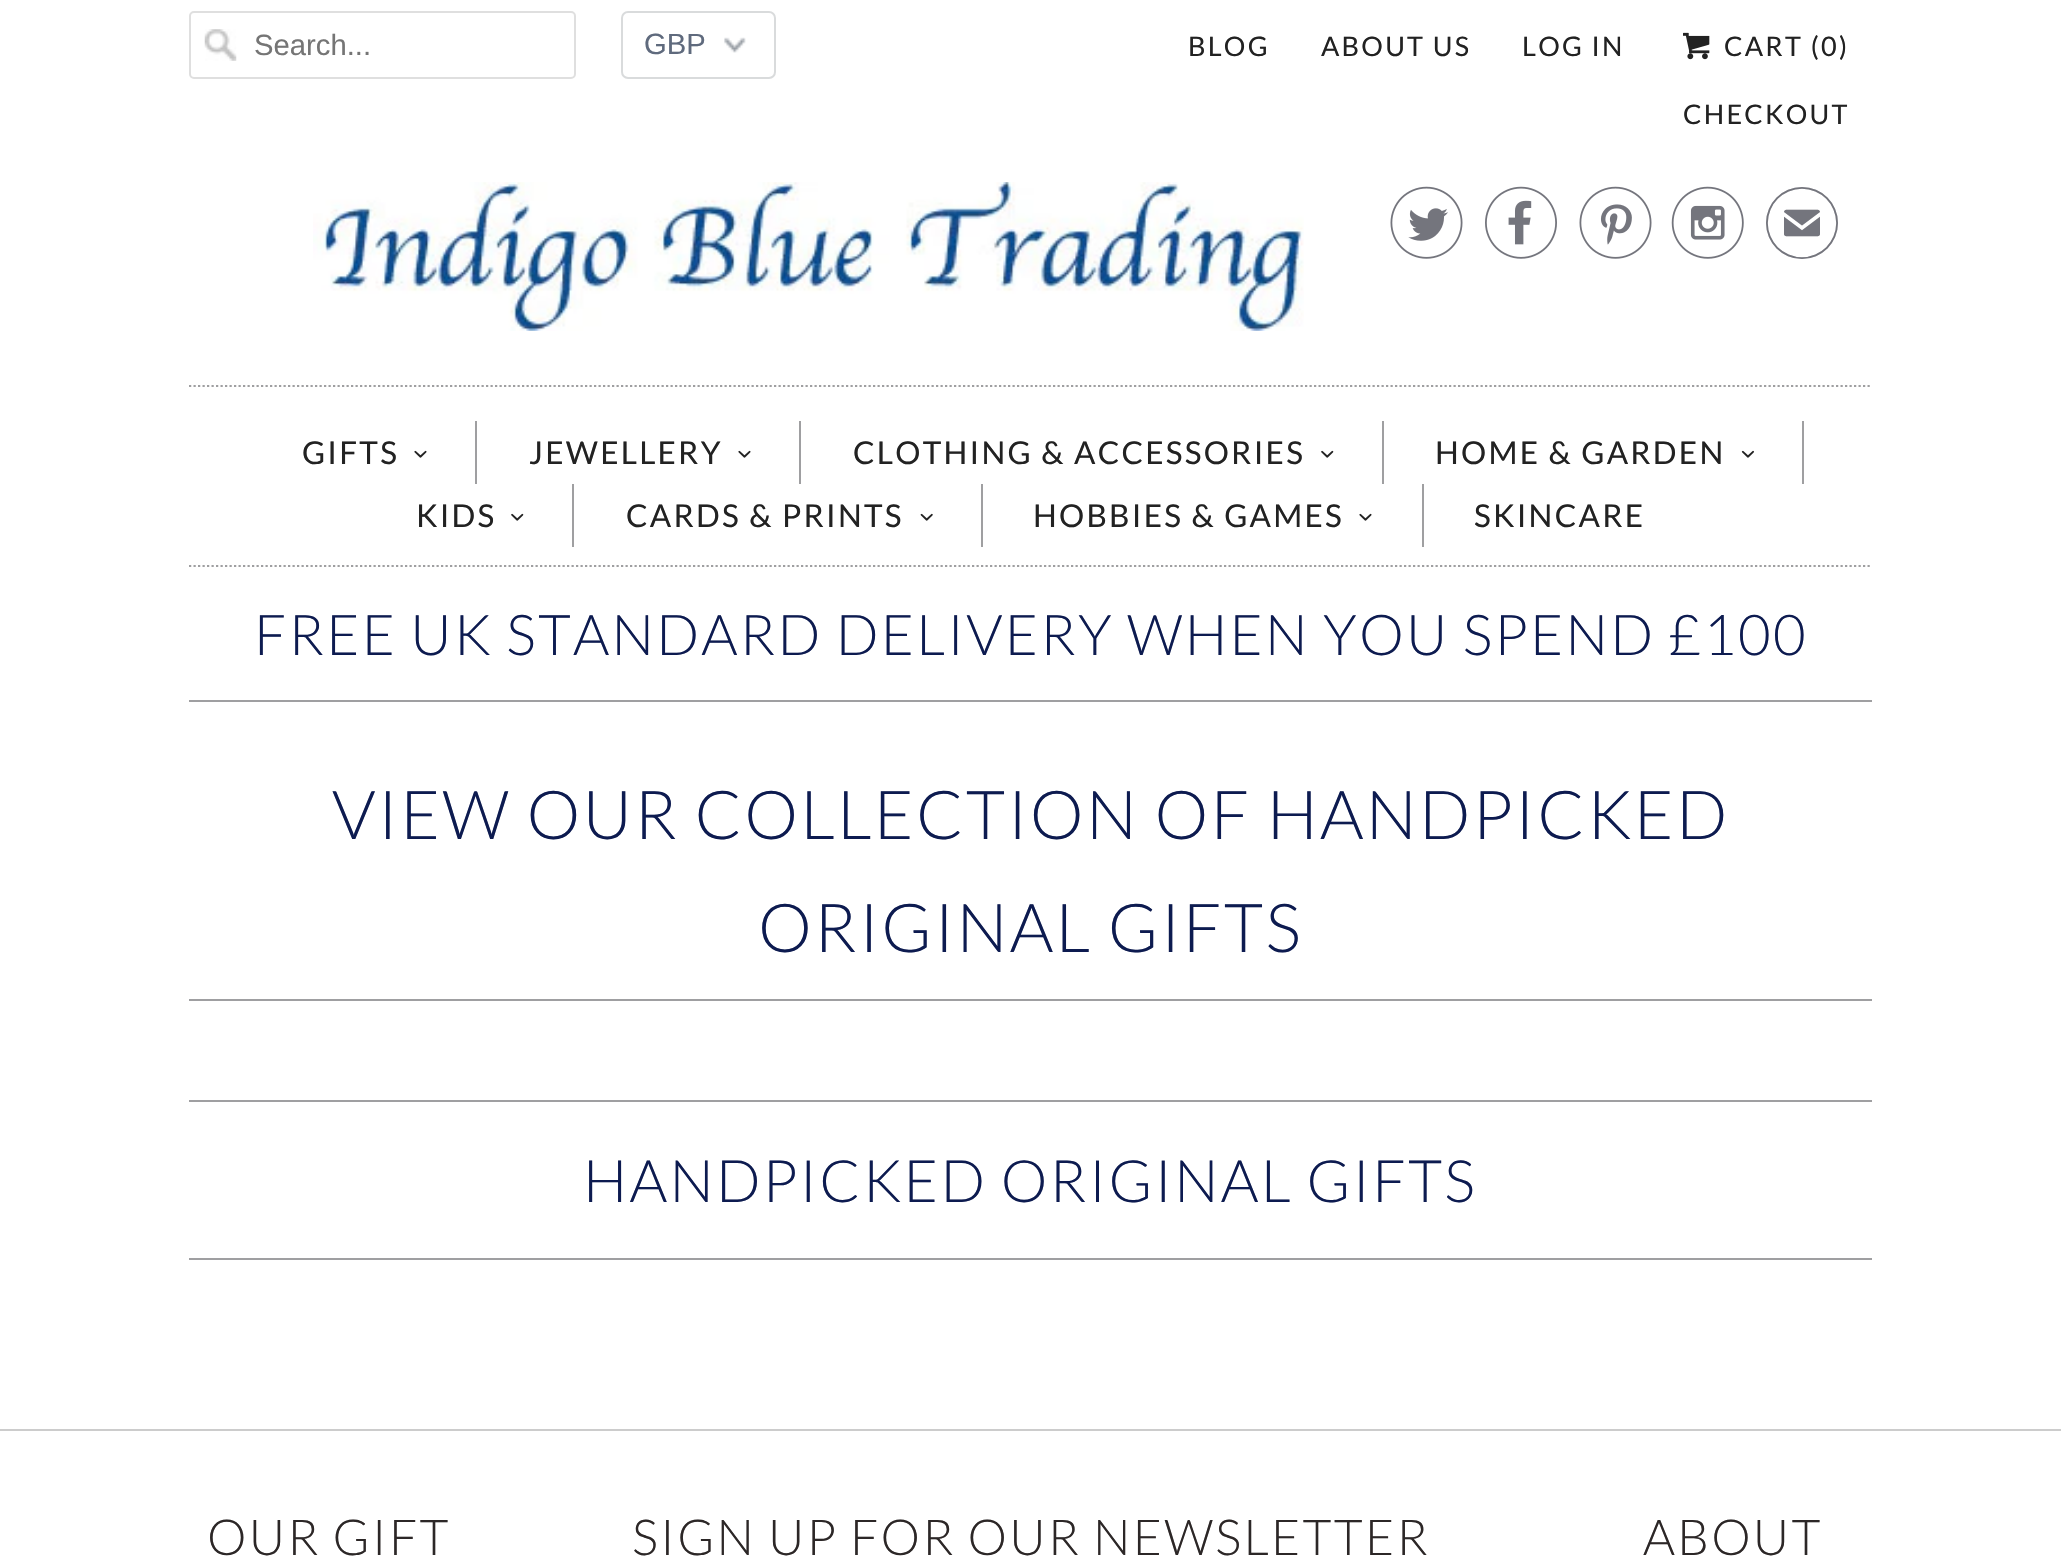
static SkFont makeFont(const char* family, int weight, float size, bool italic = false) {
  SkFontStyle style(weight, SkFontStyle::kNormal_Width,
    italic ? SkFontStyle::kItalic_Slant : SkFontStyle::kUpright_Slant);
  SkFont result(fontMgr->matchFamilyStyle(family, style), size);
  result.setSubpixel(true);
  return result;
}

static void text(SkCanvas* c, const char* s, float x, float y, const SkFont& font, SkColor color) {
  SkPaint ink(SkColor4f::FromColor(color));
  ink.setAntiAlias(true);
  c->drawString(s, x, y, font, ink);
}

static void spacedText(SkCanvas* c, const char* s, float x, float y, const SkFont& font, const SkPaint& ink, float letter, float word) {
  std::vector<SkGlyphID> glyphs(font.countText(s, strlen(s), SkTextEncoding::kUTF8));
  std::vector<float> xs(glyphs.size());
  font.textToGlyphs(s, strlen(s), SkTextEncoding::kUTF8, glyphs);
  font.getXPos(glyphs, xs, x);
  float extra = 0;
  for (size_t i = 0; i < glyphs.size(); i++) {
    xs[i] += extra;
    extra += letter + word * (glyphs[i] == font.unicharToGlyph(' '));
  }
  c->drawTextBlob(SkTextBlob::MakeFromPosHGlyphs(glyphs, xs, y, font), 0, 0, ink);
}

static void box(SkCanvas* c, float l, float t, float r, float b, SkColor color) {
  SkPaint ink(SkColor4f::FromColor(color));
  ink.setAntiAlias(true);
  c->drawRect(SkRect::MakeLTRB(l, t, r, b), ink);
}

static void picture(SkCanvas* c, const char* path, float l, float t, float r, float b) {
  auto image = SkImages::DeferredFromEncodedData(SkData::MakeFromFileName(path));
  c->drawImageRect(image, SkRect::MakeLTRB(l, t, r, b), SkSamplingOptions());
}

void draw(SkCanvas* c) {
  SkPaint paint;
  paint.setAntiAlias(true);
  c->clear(0xffffffff);
  picture(c, "img_01.png", 204, 29, 237, 61);
  paint.setStyle(SkPaint::kStroke_Style);
  paint.setStrokeWidth(2);
  paint.setColor(0xffdfdfdf);
  c->drawRoundRect(SkRect::MakeLTRB(190, 12, 575, 78), 4, 4, paint);
  SkFont face1 = makeFont("Liberation Sans", 400, 29.25f);
  text(c, "Search...", 254, 55, face1, 0xff757575);
  picture(c, "img_02.png", 724, 37, 746, 53);
  paint.setColor(0xffd9dbdc);
  c->drawRoundRect(SkRect::MakeLTRB(622, 12, 775, 78), 6, 6, paint);
  text(c, "GBP", 644, 54, face1, 0xff5f6a7d);
  SkFont face2 = makeFont("Lato", 400, 27);
  paint.setStyle(SkPaint::kFill_Style);
  paint.setColor(0xff222222);
  spacedText(c, "BLOG", 1188, 56, face2, paint, 2.25f, 0);
  spacedText(c, "ABOUT US", 1321, 56, face2, paint, 2.25f, 0);
  spacedText(c, "LOG IN", 1522, 56, face2, paint, 2.25f, 0);
  picture(c, "img_03.png", 1683, 32, 1710, 60);
  spacedText(c, "CART (0)", 1724, 56, face2, paint, 2.25f, 0);
  spacedText(c, "CHECKOUT", 1683, 124, face2, paint, 2.25f, 0);
  picture(c, "img_04.png", 313, 182, 1304, 331);
  picture(c, "img_05.png", 1390, 186, 1463, 259);
  picture(c, "img_06.png", 1485, 186, 1557, 259);
  picture(c, "img_07.png", 1579, 186, 1652, 259);
  picture(c, "img_08.png", 1671, 186, 1744, 259);
  SkFont face3 = makeFont("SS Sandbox", 400, 72);
  text(c, "✉", 1766, 259, face3, 0xff74757d);
  paint.setStyle(SkPaint::kStroke_Style);
  paint.setStrokeWidth(2.2f);
  paint.setColor(0xff9f9fa1);
  paint.setPathEffect(SkDashPathEffect::Make({{2.25f, 2.25f}}, 0));
  c->drawPath(SkPathBuilder().moveTo(189, 386).lineTo(1872, 386).detach(), paint);
  paint.setPathEffect(nullptr);
  paint.setPathEffect(SkDashPathEffect::Make({{2.25f, 2.25f}}, 0));
  c->drawPath(SkPathBuilder().moveTo(189, 566).lineTo(1872, 566).detach(), paint);
  paint.setPathEffect(nullptr);
  box(c, 475, 421, 477, 484, 0xff9f9fa1);
  SkFont face4 = makeFont("Lato", 400, 31.5f);
  paint.setStyle(SkPaint::kFill_Style);
  paint.setColor(0xff222222);
  spacedText(c, "GIFTS", 302, 464, face4, paint, 2.25f, 0);
  picture(c, "img_09.png", 414, 450, 427, 458);
  box(c, 799, 421, 801, 484, 0xff9f9fa1);
  spacedText(c, "JEWELLERY", 529, 464, face4, paint, 2.25f, 0);
  picture(c, "img_09.png", 738, 450, 751, 458);
  box(c, 1382, 421, 1384, 484, 0xff9f9fa1);
  spacedText(c, "CLOTHING & ACCESSORIES", 853, 464, face4, paint, 2.25f, 0);
  picture(c, "img_10.png", 1321, 450, 1334, 458);
  box(c, 1802, 421, 1804, 484, 0xff9f9fa1);
  spacedText(c, "HOME & GARDEN", 1435, 464, face4, paint, 2.25f, 0);
  picture(c, "img_11.png", 1741, 450, 1754, 458);
  box(c, 572, 484, 574, 547, 0xff9f9fa1);
  spacedText(c, "KIDS", 416, 527, face4, paint, 2.25f, 0);
  picture(c, "img_10.png", 511, 513, 524, 521);
  box(c, 981, 484, 983, 547, 0xff9f9fa1);
  spacedText(c, "CARDS & PRINTS", 626, 527, face4, paint, 2.25f, 0);
  picture(c, "img_12.png", 920, 513, 933, 521);
  box(c, 1422, 484, 1424, 547, 0xff9f9fa1);
  spacedText(c, "HOBBIES & GAMES", 1033, 527, face4, paint, 2.25f, 0);
  picture(c, "img_09.png", 1359, 513, 1372, 521);
  spacedText(c, "SKINCARE", 1474, 527, face4, paint, 2.25f, 0);
  box(c, 189, 700, 1872, 702, 0xff9f9fa1);
  SkFont face5 = makeFont("Lato", 300, 56.25f);
  paint.setColor(0xff0d1b50);
  spacedText(c, "FREE UK STANDARD DELIVERY WHEN YOU SPEND £100", 254, 655, face5, paint, 2.25f, 0);
  box(c, 189, 999, 1872, 1001, 0xff9f9fa1);
  SkFont face6 = makeFont("Lato", 300, 67.5f);
  spacedText(c, "VIEW OUR COLLECTION OF HANDPICKED", 332, 839, face6, paint, 2.25f, 0);
  spacedText(c, "ORIGINAL GIFTS", 758, 952, face6, paint, 2.25f, 0);
  box(c, 189, 1100, 1872, 1102, 0xff9f9fa1);
  box(c, 189, 1258, 1872, 1260, 0xff9f9fa1);
  SkFont face7 = makeFont("Lato", 300, 58.5f);
  spacedText(c, "HANDPICKED ORIGINAL GIFTS", 583, 1202, face7, paint, 2.25f, 0);
  box(c, 0, 1429, 2061, 1431, 0xffcccccc);
  SkFont face8 = makeFont("Lato", 300, 49.5f);
  paint.setColor(0xff2c2727);
  spacedText(c, "OUR GIFT", 207, 1555, face8, paint, 2.25f, 0);
  spacedText(c, "SIGN UP FOR OUR NEWSLETTER", 632, 1555, face8, paint, 2.25f, 0);
  spacedText(c, "ABOUT", 1643, 1555, face8, paint, 2.25f, 0);
}
